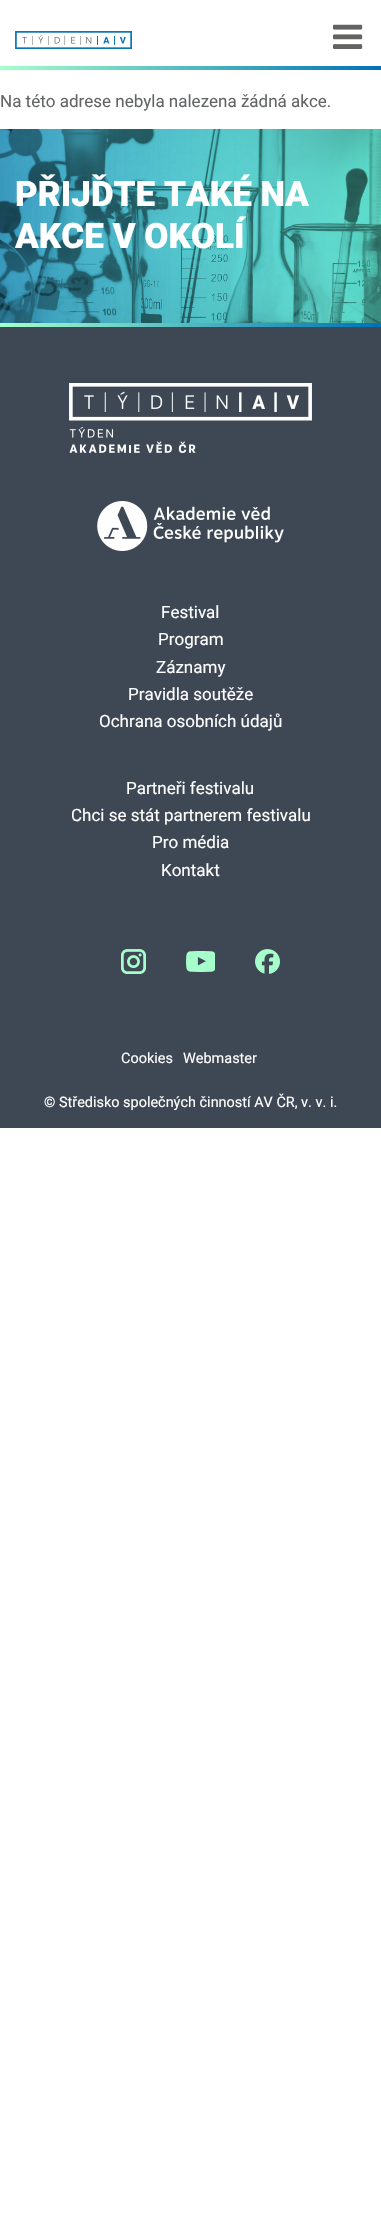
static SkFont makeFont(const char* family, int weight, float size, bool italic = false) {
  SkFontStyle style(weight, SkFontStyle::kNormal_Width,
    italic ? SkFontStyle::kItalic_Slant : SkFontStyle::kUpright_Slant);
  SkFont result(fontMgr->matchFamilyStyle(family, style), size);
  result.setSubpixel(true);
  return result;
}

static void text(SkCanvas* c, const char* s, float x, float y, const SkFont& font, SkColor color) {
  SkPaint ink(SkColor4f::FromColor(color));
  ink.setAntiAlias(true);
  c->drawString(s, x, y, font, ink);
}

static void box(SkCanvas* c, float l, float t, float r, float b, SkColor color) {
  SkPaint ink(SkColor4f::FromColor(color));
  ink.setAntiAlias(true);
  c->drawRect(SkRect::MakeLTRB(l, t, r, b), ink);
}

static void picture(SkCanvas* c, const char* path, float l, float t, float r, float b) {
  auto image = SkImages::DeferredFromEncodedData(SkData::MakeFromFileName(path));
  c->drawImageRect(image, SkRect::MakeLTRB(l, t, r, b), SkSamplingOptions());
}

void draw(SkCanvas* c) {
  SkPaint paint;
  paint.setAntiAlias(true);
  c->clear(0xffffffff);
  picture(c, "img_01.png", 15, 31, 132, 49);
  picture(c, "img_02.png", 333, 24, 363, 49);
  {
    const SkColor colors[] = {0xffa6ffcb, 0xff0072b6};
    const float stops[] = {0, 1};
    const SkPoint ends[] = {{0, 68}, {381, 68}};
    paint.setShader(SkGradientShader::MakeLinear(ends, colors, stops, 2, SkTileMode::kClamp));
    paint.setAlpha(255);
  }
  c->drawRect(SkRect::MakeLTRB(0, 66, 381, 70), paint);
  SkFont face1 = makeFont("Roboto", 400, 17);
  text(c, "Na této adrese nebyla nalezena žádná akce.", 0, 107, face1, 0xff636567);
  picture(c, "img_03.png", 0, 129, 381, 323);
  SkFont face2 = makeFont("Roboto", 900, 35);
  text(c, "PŘIJĎTE TAKÉ NA", 15, 206, face2, 0xffffffff);
  text(c, "AKCE V OKOLÍ", 15, 248, face2, 0xffffffff);
  {
    const SkColor colors[] = {0xffa6ffcb, 0xff0072b6};
    const float stops[] = {0, 1};
    const SkPoint ends[] = {{0, 325}, {381, 325}};
    paint.setShader(SkGradientShader::MakeLinear(ends, colors, stops, 2, SkTileMode::kClamp));
    paint.setAlpha(255);
  }
  c->drawRect(SkRect::MakeLTRB(0, 323, 381, 327), paint);
  box(c, 0, 327, 381, 1128, 0xff3e4754);
  picture(c, "img_04.png", 69, 383, 312, 453);
  picture(c, "img_05.png", 97, 501, 284, 551);
  text(c, "Festival", 161, 618, face1, 0xffffffff);
  text(c, "Program", 158, 645, face1, 0xffffffff);
  text(c, "Záznamy", 156, 673, face1, 0xffffffff);
  text(c, "Pravidla soutěže", 128, 700, face1, 0xffffffff);
  text(c, "Ochrana osobních údajů", 99, 727, face1, 0xffffffff);
  text(c, "Partneři festivalu", 126, 794, face1, 0xffffffff);
  text(c, "Chci se stát partnerem festivalu", 71, 821, face1, 0xffffffff);
  text(c, "Pro média", 152, 848, face1, 0xffffffff);
  text(c, "Kontakt", 161, 876, face1, 0xffffffff);
  picture(c, "img_06.png", 121, 949, 146, 974);
  picture(c, "img_07.png", 186, 951, 215, 972);
  picture(c, "img_08.png", 255, 949, 280, 974);
  SkFont face3 = makeFont("Roboto", 400, 14.45f);
  text(c, "Cookies", 121, 1063, face3, 0xffffffff);
  text(c, "Webmaster", 183, 1063, face3, 0xffffffff);
  text(c, "© Středisko společných činností AV ČR, v. v. i.", 44, 1107, face3, 0xffffffff);
}
